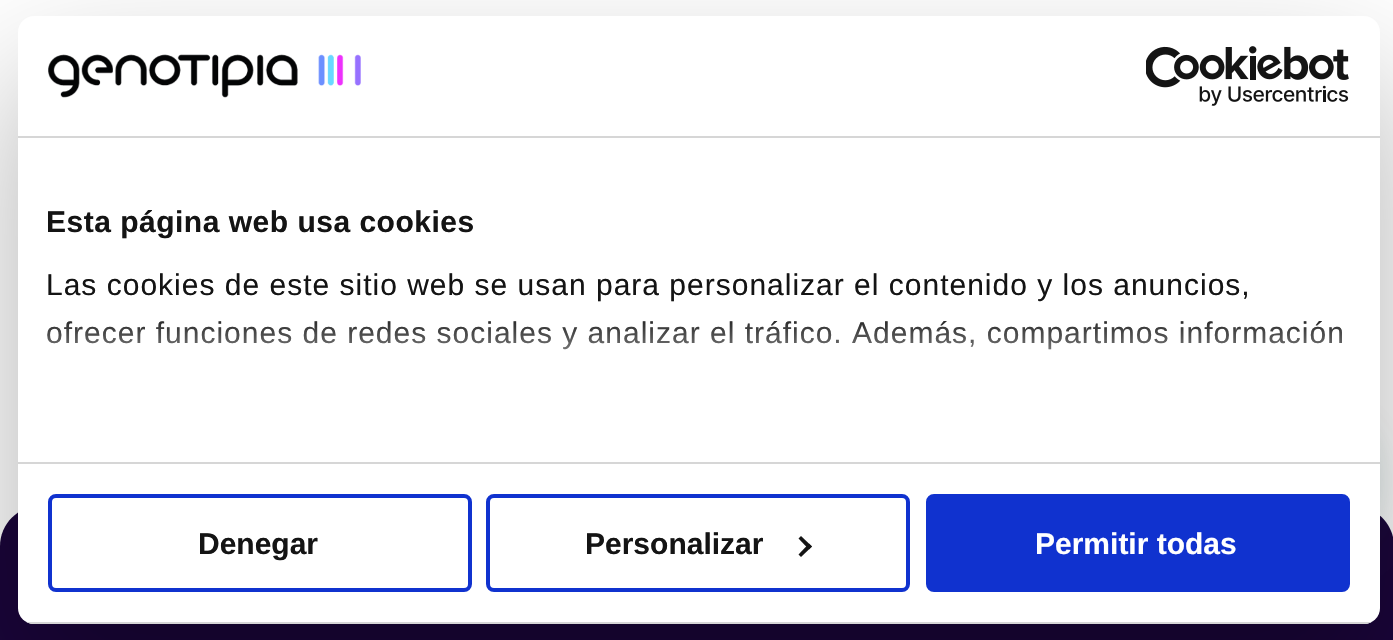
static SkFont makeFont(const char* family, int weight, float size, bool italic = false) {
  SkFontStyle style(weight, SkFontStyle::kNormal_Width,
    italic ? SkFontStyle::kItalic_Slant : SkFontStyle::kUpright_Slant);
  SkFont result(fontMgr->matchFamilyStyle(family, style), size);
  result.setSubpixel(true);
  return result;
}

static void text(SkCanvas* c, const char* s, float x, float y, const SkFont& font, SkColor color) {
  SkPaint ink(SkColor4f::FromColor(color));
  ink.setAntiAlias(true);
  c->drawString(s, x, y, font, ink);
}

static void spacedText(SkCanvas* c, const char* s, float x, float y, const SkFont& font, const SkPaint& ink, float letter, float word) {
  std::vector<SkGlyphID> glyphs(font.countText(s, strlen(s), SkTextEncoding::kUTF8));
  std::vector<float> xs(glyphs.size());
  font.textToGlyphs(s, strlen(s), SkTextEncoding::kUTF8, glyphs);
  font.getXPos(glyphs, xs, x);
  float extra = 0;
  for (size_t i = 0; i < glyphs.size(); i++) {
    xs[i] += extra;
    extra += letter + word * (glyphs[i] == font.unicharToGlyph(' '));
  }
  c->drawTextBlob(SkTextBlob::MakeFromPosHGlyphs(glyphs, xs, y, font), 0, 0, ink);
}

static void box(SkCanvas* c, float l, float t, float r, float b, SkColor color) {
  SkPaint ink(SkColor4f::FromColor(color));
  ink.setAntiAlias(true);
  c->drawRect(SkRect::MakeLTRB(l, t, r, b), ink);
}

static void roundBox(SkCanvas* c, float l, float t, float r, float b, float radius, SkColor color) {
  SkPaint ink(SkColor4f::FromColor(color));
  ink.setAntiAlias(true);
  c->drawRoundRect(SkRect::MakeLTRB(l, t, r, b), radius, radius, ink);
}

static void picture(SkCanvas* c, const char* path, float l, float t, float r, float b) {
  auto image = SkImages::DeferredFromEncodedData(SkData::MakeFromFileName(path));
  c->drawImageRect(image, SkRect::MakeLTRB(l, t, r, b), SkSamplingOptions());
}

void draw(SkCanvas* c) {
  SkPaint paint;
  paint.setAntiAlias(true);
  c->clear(0xffffffff);
  paint.setColor(0xff1a053a);
  c->drawPath(SkPathBuilder().moveTo(40, 506).lineTo(1354, 506).cubicTo(1376, 506, 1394, 524, 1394, 546).lineTo(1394, 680).lineTo(0, 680).lineTo(0, 546).cubicTo(0, 524, 18, 506, 40, 506).close().detach(), paint);
  paint.setColor(0x4d000000);
  paint.setMaskFilter(SkMaskFilter::MakeBlur(kNormal_SkBlurStyle, 68));
  c->drawRoundRect(SkRect::MakeLTRB(18, 80, 1380, 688), 16, 16, paint);
  paint.setMaskFilter(nullptr);
  paint.setColor(0x3d075e54);
  paint.setMaskFilter(SkMaskFilter::MakeBlur(kNormal_SkBlurStyle, 24));
  c->drawRoundRect(SkRect::MakeLTRB(1248, 420, 1368, 540), 60, 60, paint);
  paint.setMaskFilter(nullptr);
  roundBox(c, 18, 16, 1380, 624, 16, 0xffffffff);
  box(c, 18, 136, 1380, 138, 0xffd6d6d6);
  picture(c, "img_01.png", 48, 54, 361, 98);
  picture(c, "img_02.png", 1146, 46, 1349, 106);
  box(c, 18, 462, 1380, 464, 0xffd6d6d6);
  SkFont face1 = makeFont("Liberation Sans", 700, 30);
  paint.setColor(0xff141414);
  spacedText(c, "Esta página web usa cookies", 46, 232, face1, paint, 0.5f, 0);
  SkFont face2 = makeFont("Liberation Sans", 400, 30);
  spacedText(c, "Las cookies de este sitio web se usan para personalizar el contenido y los anuncios,", 46, 295, face2, paint, 1, 0);
  spacedText(c, "ofrecer funciones de redes sociales y analizar el tráfico. Además, compartimos información", 46, 343, face2, paint, 1, 0);
  {
    const SkColor colors[] = {0xffffffff, 0xccffffff, 0x00ffffff};
    const float stops[] = {0, 0.5f, 1};
    const SkPoint ends[] = {{685, 462}, {685, 312}};
    paint.setShader(SkGradientShader::MakeLinear(ends, colors, stops, 3, SkTileMode::kClamp));
    paint.setAlpha(255);
  }
  c->drawRect(SkRect::MakeLTRB(47, 321, 1342, 350), paint);
  c->save();
  c->clipPath(SkPathBuilder().moveTo(34, 16).lineTo(1364, 16).cubicTo(1373, 16, 1380, 23, 1380, 32).lineTo(1380, 608).cubicTo(1380, 617, 1373, 624, 1364, 624).lineTo(34, 624).cubicTo(25, 624, 18, 617, 18, 608).lineTo(18, 32).cubicTo(18, 23, 25, 16, 34, 16).close().detach(), true);
  box(c, 18, 622, 1380, 624, 0xffd6d6d6);
  c->restore();
  paint.setStyle(SkPaint::kStroke_Style);
  paint.setStrokeWidth(4);
  paint.setShader(nullptr);
  paint.setColor(0xff1032cf);
  c->drawRoundRect(SkRect::MakeLTRB(50, 496, 470, 590), 6, 6, paint);
  text(c, "Denegar", 198, 554, face1, 0xff141414);
  c->drawRoundRect(SkRect::MakeLTRB(488, 496, 908, 590), 6, 6, paint);
  text(c, "Personalizar", 585, 554, face1, 0xff141414);
  paint.setStyle(SkPaint::kFill_Style);
  paint.setColor(0xff141414);
  c->drawPath(SkPathBuilder().moveTo(801, 536).lineTo(812, 546.5f).lineTo(809, 549.5f).lineTo(798.5f, 538.5f).close().detach(), paint);
  c->drawPath(SkPathBuilder().moveTo(809, 543.5f).lineTo(812, 546.5f).lineTo(801, 557).lineTo(798.5f, 554.5f).close().detach(), paint);
  paint.setColor(0xff1032cf);
  c->drawRoundRect(SkRect::MakeLTRB(928, 496, 1348, 590), 6, 6, paint);
  paint.setStyle(SkPaint::kStroke_Style);
  c->drawRoundRect(SkRect::MakeLTRB(928, 496, 1348, 590), 6, 6, paint);
  text(c, "Permitir todas", 1035, 554, face1, 0xffffffff);
}
